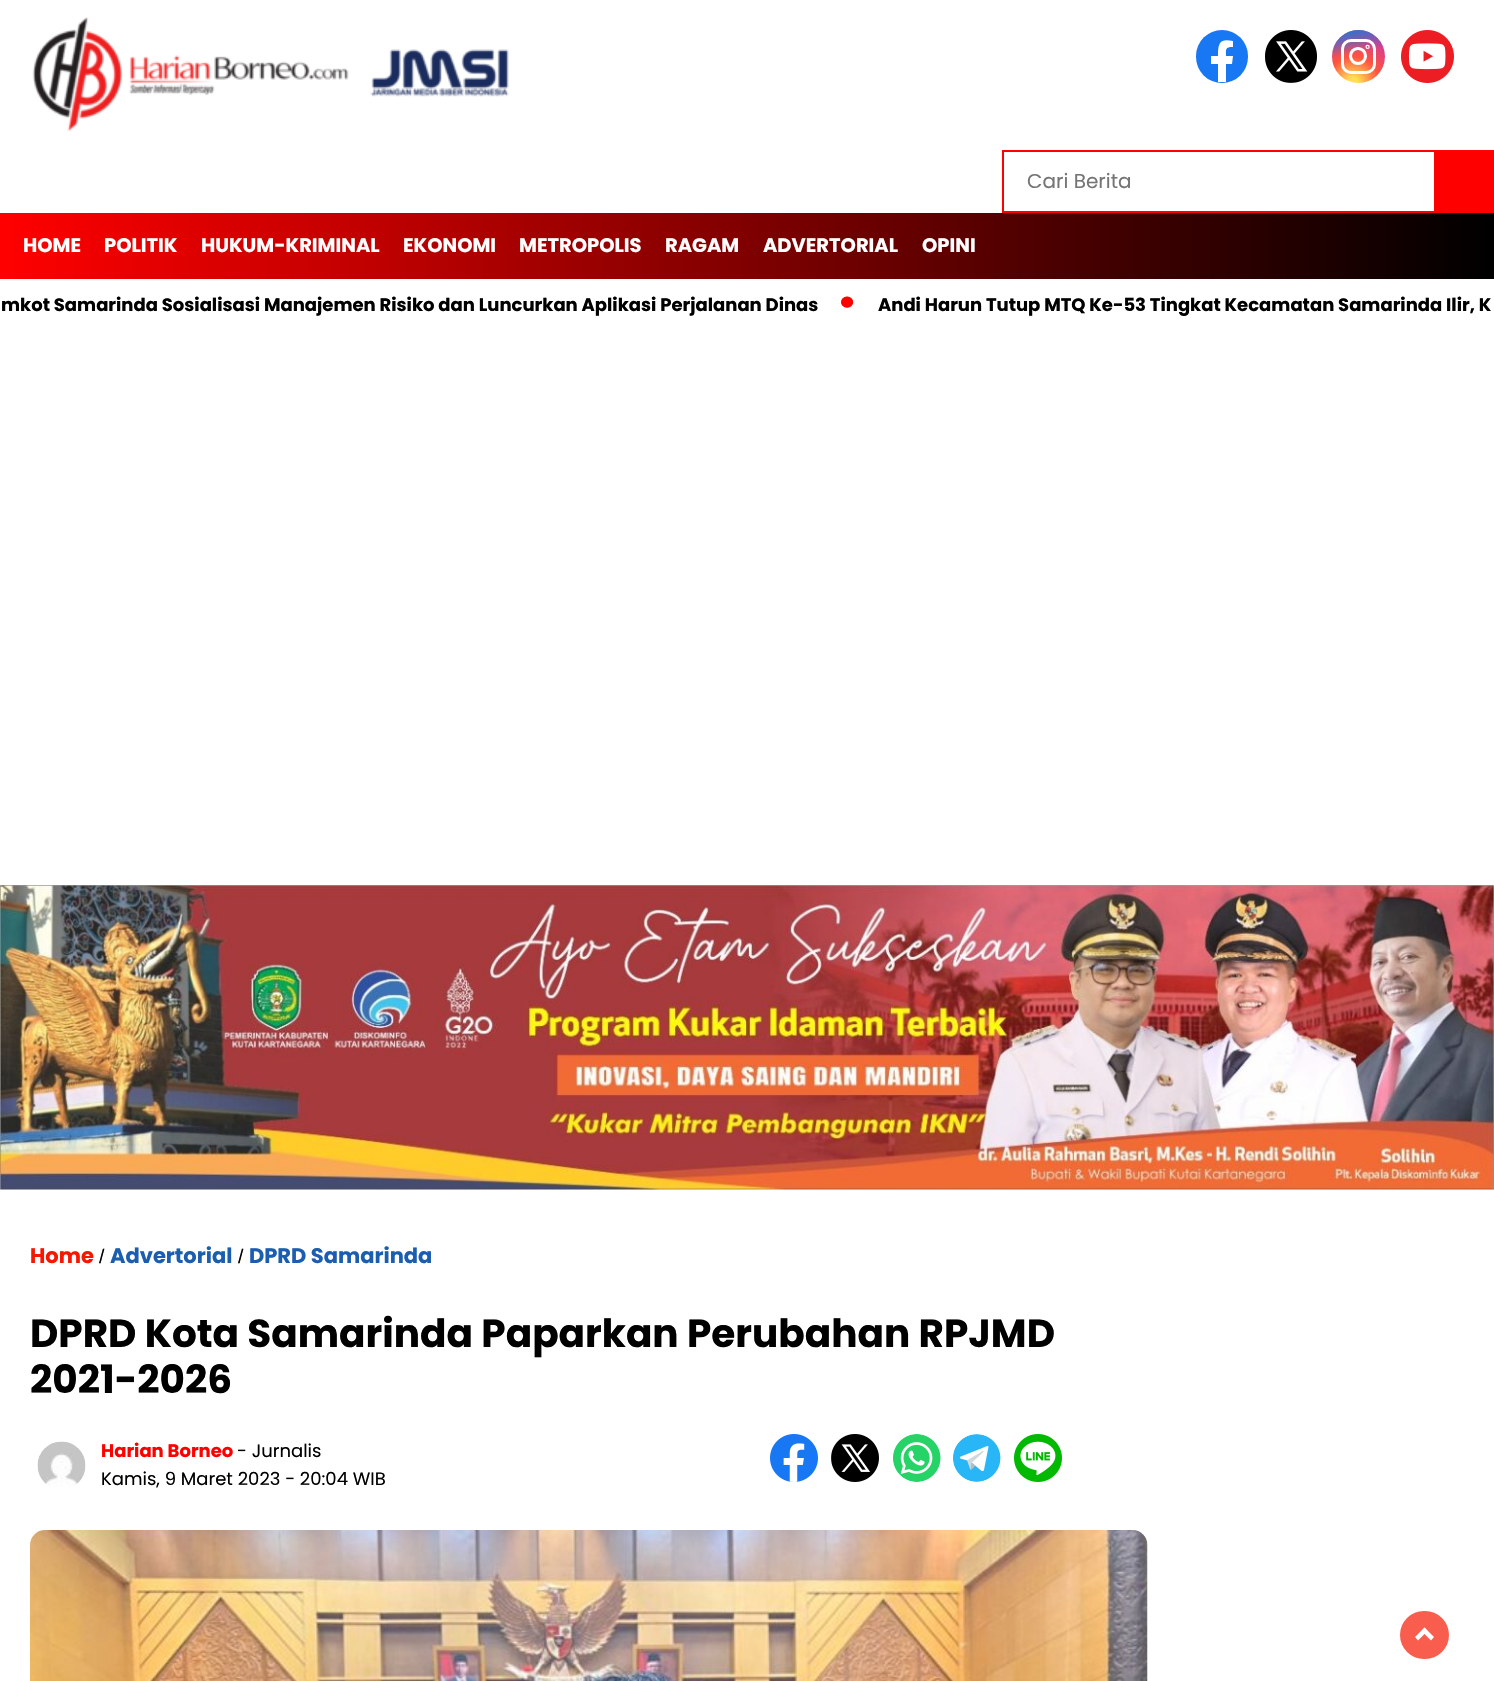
static SkFont makeFont(const char* family, int weight, float size, bool italic = false) {
  SkFontStyle style(weight, SkFontStyle::kNormal_Width,
    italic ? SkFontStyle::kItalic_Slant : SkFontStyle::kUpright_Slant);
  SkFont result(fontMgr->matchFamilyStyle(family, style), size);
  result.setSubpixel(true);
  return result;
}

static void text(SkCanvas* c, const char* s, float x, float y, const SkFont& font, SkColor color) {
  SkPaint ink(SkColor4f::FromColor(color));
  ink.setAntiAlias(true);
  c->drawString(s, x, y, font, ink);
}

static void box(SkCanvas* c, float l, float t, float r, float b, SkColor color) {
  SkPaint ink(SkColor4f::FromColor(color));
  ink.setAntiAlias(true);
  c->drawRect(SkRect::MakeLTRB(l, t, r, b), ink);
}

static void roundBox(SkCanvas* c, float l, float t, float r, float b, float radius, SkColor color) {
  SkPaint ink(SkColor4f::FromColor(color));
  ink.setAntiAlias(true);
  c->drawRoundRect(SkRect::MakeLTRB(l, t, r, b), radius, radius, ink);
}

static void picture(SkCanvas* c, const char* path, float l, float t, float r, float b) {
  auto image = SkImages::DeferredFromEncodedData(SkData::MakeFromFileName(path));
  c->drawImageRect(image, SkRect::MakeLTRB(l, t, r, b), SkSamplingOptions());
}

void draw(SkCanvas* c) {
  SkPaint paint;
  paint.setAntiAlias(true);
  c->clear(0xffffffff);
  picture(c, "img_01.png", 32, 17, 509, 131);
  roundBox(c, 1196, 30, 1248, 83, 26, 0xff1877f2);
  paint.setColor(0xffffffff);
  c->drawPath(SkPathBuilder().moveTo(1232, 64).lineTo(1233, 56).lineTo(1226, 56).cubicTo(1226, 49, 1225, 47, 1233, 47).lineTo(1233, 41).cubicTo(1219, 38, 1218, 44, 1218, 56).lineTo(1211, 56).lineTo(1211, 64).lineTo(1218, 64).lineTo(1218, 82).lineTo(1226, 82).lineTo(1226, 64).close().detach(), paint);
  picture(c, "img_02.png", 1265, 30, 1317, 83);
  {
    const SkColor colors[] = {0xffffdd55, 0xffff543e, 0xffc837ab};
    const float stops[] = {0.1f, 0.5f, 1};
    paint.setShader(SkGradientShader::MakeRadial({1353, 83}, 53, colors, stops, 3, SkTileMode::kClamp));
    paint.setAlpha(255);
  }
  c->drawCircle(1358.5f, 56.5f, 26.5f, paint);
  {
    const SkColor colors[] = {0xff3771c8, 0x003771c8};
    const float stops[] = {0.1f, 0.5f};
    const SkPoint ends[] = {{1332, 30}, {1343, 83}};
    paint.setShader(SkGradientShader::MakeLinear(ends, colors, stops, 2, SkTileMode::kClamp));
    paint.setAlpha(255);
  }
  c->drawCircle(1358.5f, 56.5f, 26.5f, paint);
  paint.setStyle(SkPaint::kStroke_Style);
  paint.setStrokeWidth(3);
  paint.setShader(nullptr);
  paint.setColor(0xffffffff);
  c->drawRoundRect(SkRect::MakeLTRB(1342.5f, 40.5f, 1374.5f, 72.5f), 8.5f, 8.5f, paint);
  paint.setStrokeWidth(3.1f);
  c->drawCircle(1358, 56, 7.5f, paint);
  c->drawCircle(1367.6f, 46.9f, 0.6f, paint);
  picture(c, "img_03.png", 1401, 30, 1454, 83);
  paint.setStrokeWidth(2);
  paint.setColor(0xffff0000);
  c->drawRect(SkRect::MakeLTRB(1003, 151, 1435, 212), paint);
  SkFont face1 = makeFont("Poppins", 400, 20);
  text(c, "Cari Berita", 1027, 188, face1, 0xff757575);
  box(c, 1436, 150, 1494, 213, 0xffff0000);
  paint.setStyle(SkPaint::kFill_Style);
  {
    const SkColor colors[] = {0xffff0000, 0xff000000};
    const float stops[] = {0, 1};
    const SkPoint ends[] = {{0, 246}, {1494, 246}};
    paint.setShader(SkGradientShader::MakeLinear(ends, colors, stops, 2, SkTileMode::kClamp));
    paint.setAlpha(255);
  }
  c->drawRect(SkRect::MakeLTRB(0, 213, 1494, 279), paint);
  SkFont face2 = makeFont("Poppins", 700, 19.5f);
  text(c, "HOME", 23, 252, face2, 0xffffffff);
  text(c, "POLITIK", 104, 252, face2, 0xffffffff);
  text(c, "HUKUM-KRIMINAL", 201, 252, face2, 0xffffffff);
  text(c, "EKONOMI", 403, 252, face2, 0xffffffff);
  text(c, "METROPOLIS", 519, 252, face2, 0xffffffff);
  text(c, "RAGAM", 665, 252, face2, 0xffffffff);
  text(c, "ADVERTORIAL", 763, 252, face2, 0xffffffff);
  text(c, "OPINI", 922, 252, face2, 0xffffffff);
  SkFont face3 = makeFont("Poppins", 700, 18);
  text(c, "mkot Samarinda Sosialisasi Manajemen Risiko dan Luncurkan Aplikasi Perjalanan Dinas", 1, 311, face3, 0xff000000);
  SkFont face4 = makeFont("Poppins", 700, 60);
  text(c, "·", 838, 321, face4, 0xffff0000);
  text(c, "Andi Harun Tutup MTQ Ke-53 Tingkat Kecamatan Samarinda Ilir, K", 878, 311, face3, 0xff000000);
  picture(c, "img_04.png", 0, 885, 1494, 1190);
  SkFont face5 = makeFont("Poppins", 700, 21);
  text(c, "Home", 30, 1263, face5, 0xfff51700);
  SkFont face6 = makeFont("Liberation Sans", 400, 19.5f);
  text(c, "/", 99, 1263, face6, 0xff000000);
  text(c, "Advertorial", 110, 1263, face5, 0xff1b5daf);
  text(c, "/", 238, 1263, face6, 0xff000000);
  text(c, "DPRD Samarinda", 249, 1263, face5, 0xff1b5daf);
  SkFont face7 = makeFont("Poppins", 700, 39);
  text(c, "DPRD Kota Samarinda Paparkan Perubahan RPJMD", 30, 1347, face7, 0xff000000);
  text(c, "2021-2026", 30, 1393, face7, 0xff000000);
  picture(c, "img_05.png", 37, 1441, 86, 1486);
  text(c, "Harian Borneo", 101, 1457, face3, 0xffff0000);
  SkFont face8 = makeFont("Poppins", 400, 18);
  text(c, "- Jurnalis", 237, 1457, face8, 0xff000000);
  text(c, "Kamis, 9 Maret 2023 - 20:04 WIB", 101, 1485, face8, 0xff000000);
  picture(c, "img_06.png", 770, 1434, 818, 1482);
  picture(c, "img_07.png", 831, 1434, 879, 1482);
  picture(c, "img_08.png", 893, 1434, 941, 1482);
  picture(c, "img_09.png", 953, 1434, 1001, 1482);
  picture(c, "img_10.png", 1014, 1434, 1062, 1482);
  picture(c, "img_11.png", 30, 1530, 1148, 1681);
  roundBox(c, 1400, 1611, 1449, 1659, 24, 0xfff85d4d);
  paint.setShader(nullptr);
  paint.setColor(0xffffffff);
  c->drawPath(SkPathBuilder().moveTo(1418, 1640.5f).lineTo(1415, 1637).lineTo(1424.5f, 1627.5f).lineTo(1427.5f, 1631).close().detach(), paint);
  c->drawPath(SkPathBuilder().moveTo(1431, 1640.5f).lineTo(1421.5f, 1631).lineTo(1424.5f, 1627.5f).lineTo(1434, 1637).close().detach(), paint);
}
